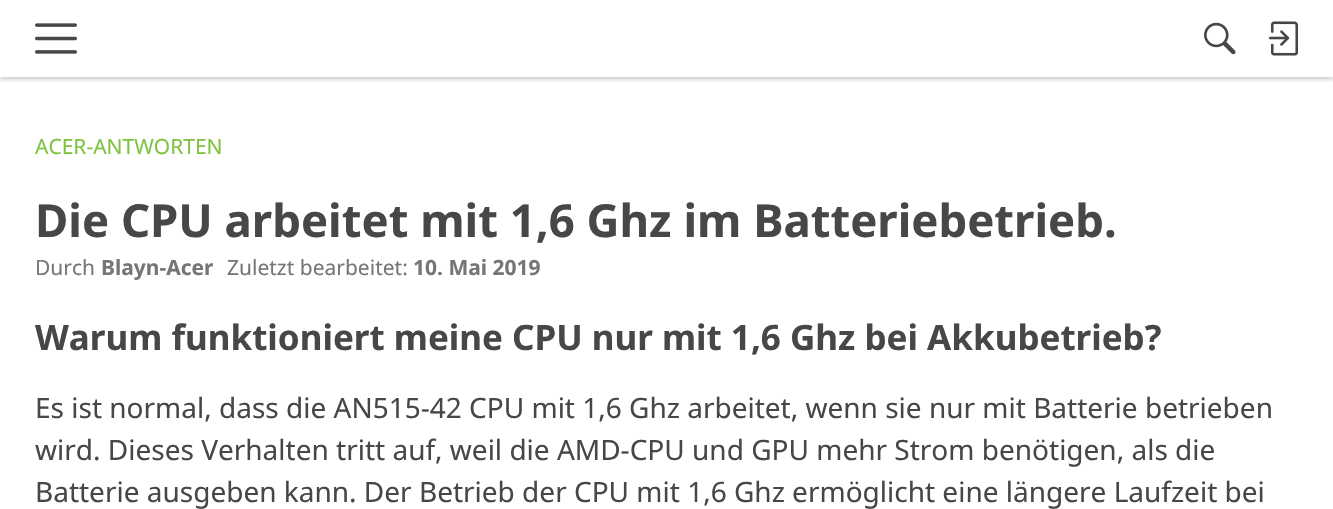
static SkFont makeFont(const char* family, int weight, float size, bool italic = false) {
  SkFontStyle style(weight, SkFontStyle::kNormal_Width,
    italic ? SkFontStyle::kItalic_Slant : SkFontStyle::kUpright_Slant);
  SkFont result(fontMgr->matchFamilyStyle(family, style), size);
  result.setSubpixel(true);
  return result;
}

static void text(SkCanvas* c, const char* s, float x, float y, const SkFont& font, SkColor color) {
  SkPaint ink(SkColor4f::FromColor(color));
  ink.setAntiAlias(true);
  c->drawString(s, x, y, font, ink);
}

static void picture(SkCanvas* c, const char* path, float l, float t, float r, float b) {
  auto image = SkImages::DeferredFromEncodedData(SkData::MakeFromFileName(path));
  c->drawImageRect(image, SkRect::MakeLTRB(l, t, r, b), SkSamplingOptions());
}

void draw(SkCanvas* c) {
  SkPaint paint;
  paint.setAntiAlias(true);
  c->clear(0xffffffff);
  c->save();
  c->clipRect(SkRect::MakeLTRB(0, 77, 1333, 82));
  paint.setColor(0x38000000);
  paint.setMaskFilter(SkMaskFilter::MakeBlur(kNormal_SkBlurStyle, 2.5f));
  c->drawRect(SkRect::MakeLTRB(0, 2, 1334, 79), paint);
  paint.setMaskFilter(nullptr);
  c->restore();
  picture(c, "img_01.png", 35, 23, 77, 54);
  picture(c, "img_02.png", 1204, 22, 1236, 55);
  picture(c, "img_03.png", 1269, 21, 1299, 56);
  SkFont face1 = makeFont("Noto Sans", 400, 21);
  text(c, "ACER-ANTWORTEN", 35, 154, face1, 0xff80c343);
  SkFont face2 = makeFont("Noto Sans", 700, 45.5f);
  text(c, "Die CPU arbeitet mit 1,6 Ghz im Batteriebetrieb.", 35, 237, face2, 0xff474747);
  text(c, "Durch", 35, 275, face1, 0xff767676);
  SkFont face3 = makeFont("Noto Sans", 700, 21);
  text(c, "Blayn-Acer", 101, 275, face3, 0xff767676);
  text(c, "Zuletzt bearbeitet:", 227, 275, face1, 0xff767676);
  text(c, "10. Mai 2019", 413, 275, face3, 0xff767676);
  SkFont face4 = makeFont("Noto Sans", 700, 35);
  text(c, "Warum funktioniert meine CPU nur mit 1,6 Ghz bei Akkubetrieb?", 35, 350, face4, 0xff474747);
  SkFont face5 = makeFont("Noto Sans", 400, 28);
  text(c, "Es ist normal, dass die AN515-42 CPU mit 1,6 Ghz arbeitet, wenn sie nur mit Batterie betrieben", 35, 418, face5, 0xff474747);
  text(c, "wird. Dieses Verhalten tritt auf, weil die AMD-CPU und GPU mehr Strom benötigen, als die", 35, 460, face5, 0xff474747);
  text(c, "Batterie ausgeben kann. Der Betrieb der CPU mit 1,6 Ghz ermöglicht eine längere Laufzeit bei", 35, 502, face5, 0xff474747);
}
